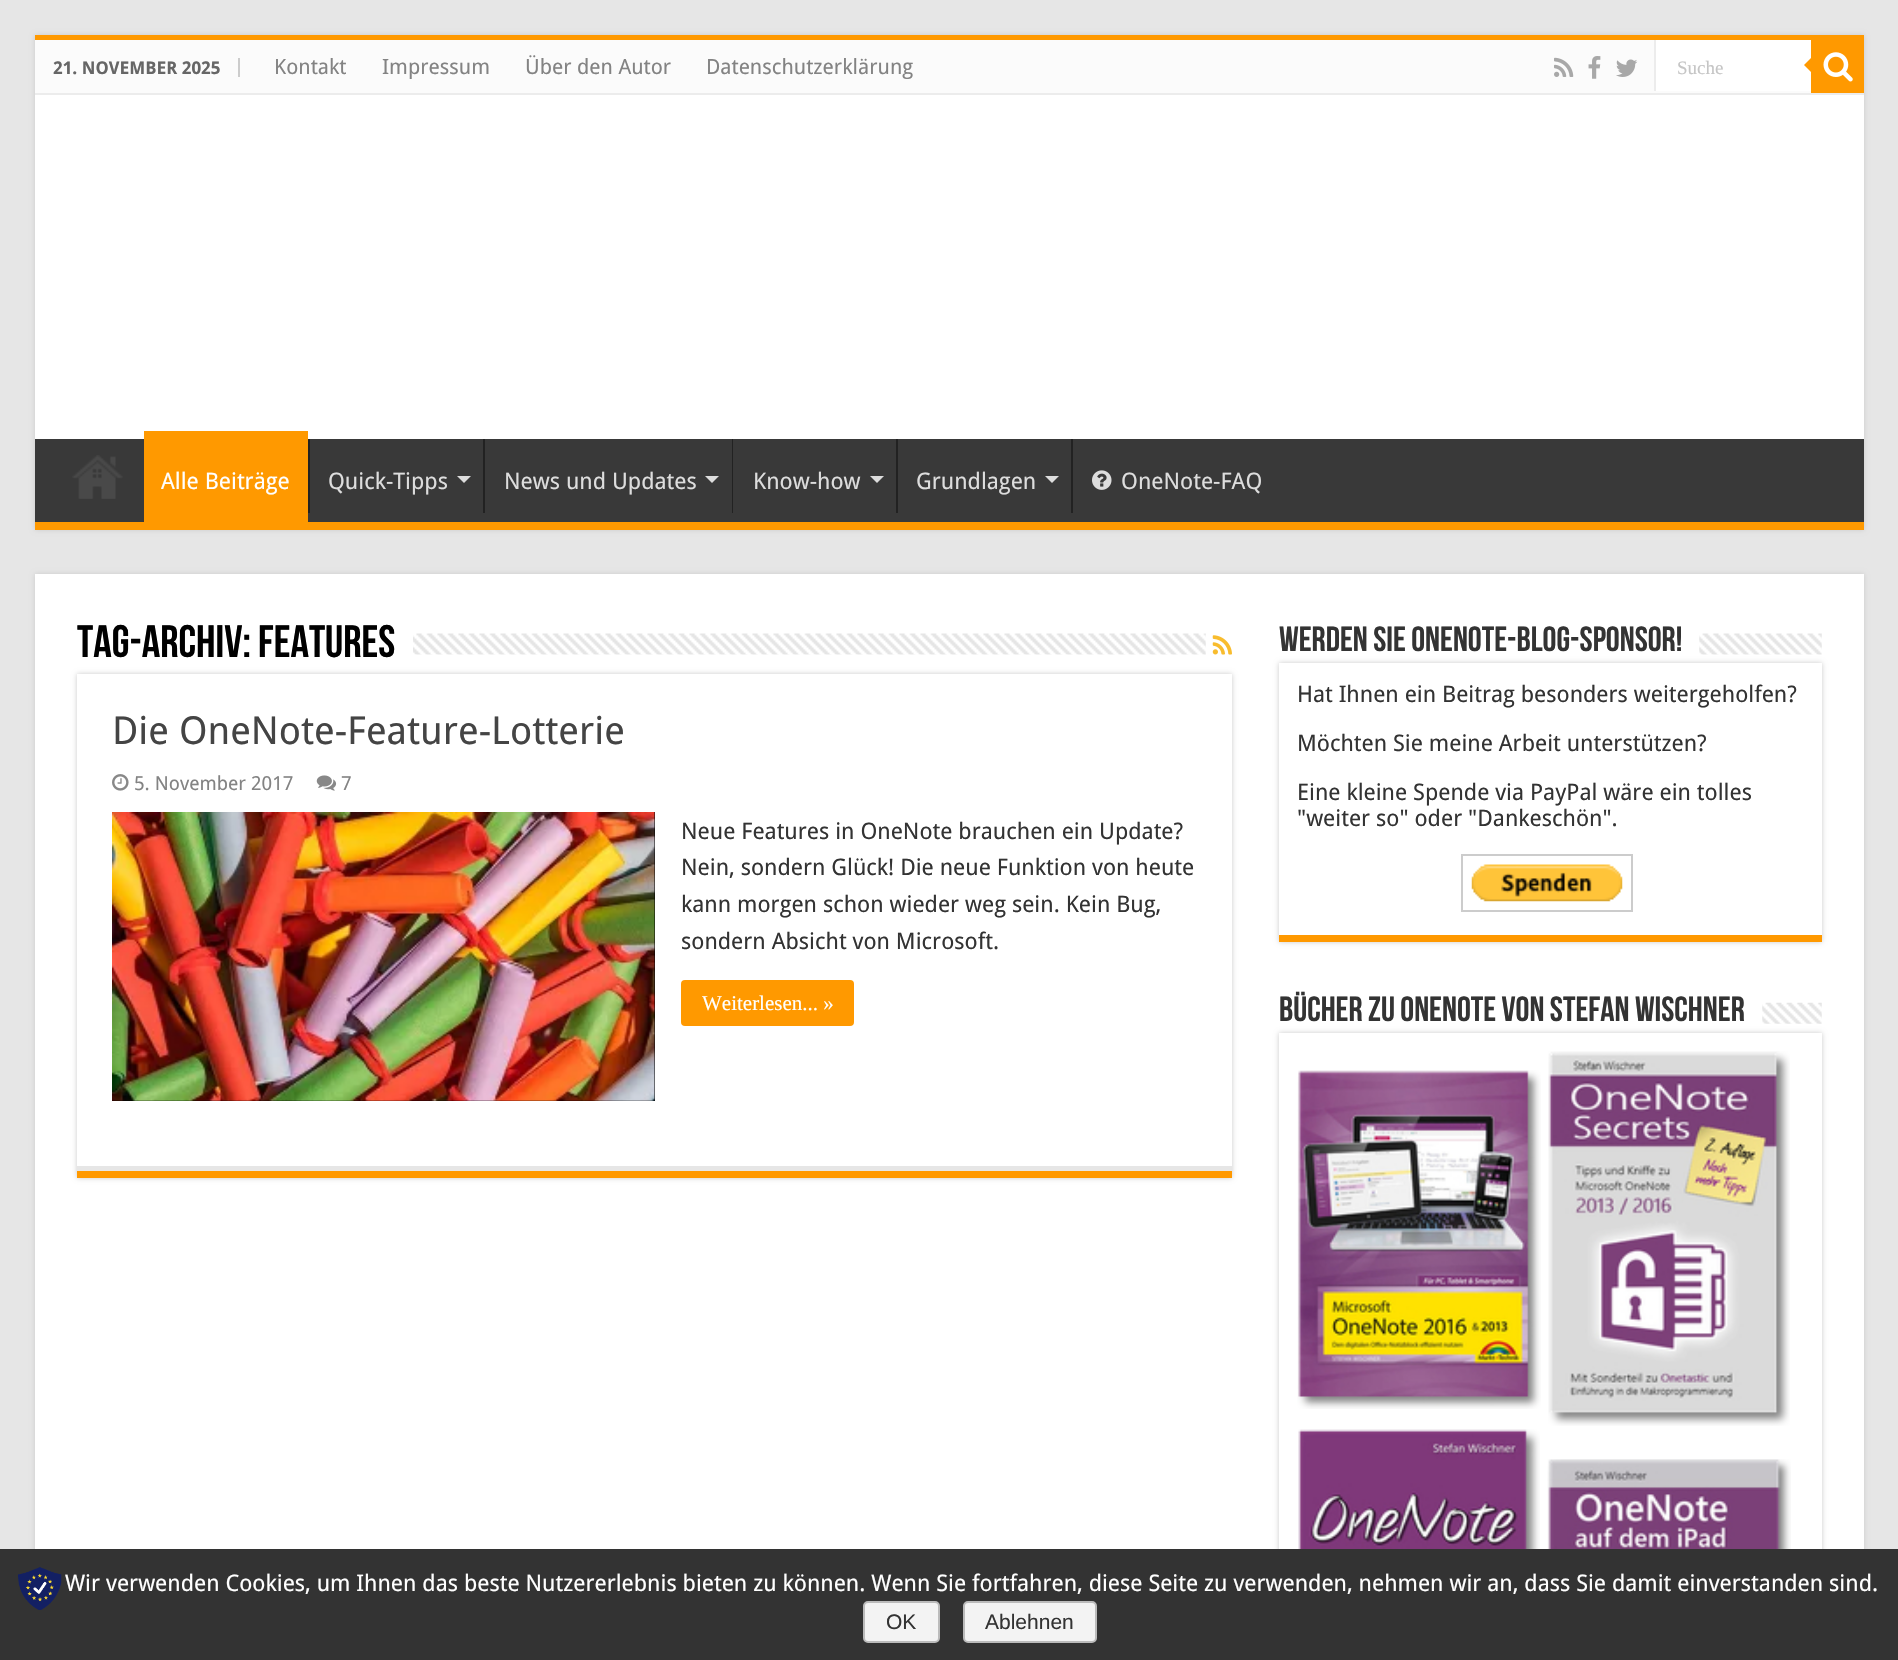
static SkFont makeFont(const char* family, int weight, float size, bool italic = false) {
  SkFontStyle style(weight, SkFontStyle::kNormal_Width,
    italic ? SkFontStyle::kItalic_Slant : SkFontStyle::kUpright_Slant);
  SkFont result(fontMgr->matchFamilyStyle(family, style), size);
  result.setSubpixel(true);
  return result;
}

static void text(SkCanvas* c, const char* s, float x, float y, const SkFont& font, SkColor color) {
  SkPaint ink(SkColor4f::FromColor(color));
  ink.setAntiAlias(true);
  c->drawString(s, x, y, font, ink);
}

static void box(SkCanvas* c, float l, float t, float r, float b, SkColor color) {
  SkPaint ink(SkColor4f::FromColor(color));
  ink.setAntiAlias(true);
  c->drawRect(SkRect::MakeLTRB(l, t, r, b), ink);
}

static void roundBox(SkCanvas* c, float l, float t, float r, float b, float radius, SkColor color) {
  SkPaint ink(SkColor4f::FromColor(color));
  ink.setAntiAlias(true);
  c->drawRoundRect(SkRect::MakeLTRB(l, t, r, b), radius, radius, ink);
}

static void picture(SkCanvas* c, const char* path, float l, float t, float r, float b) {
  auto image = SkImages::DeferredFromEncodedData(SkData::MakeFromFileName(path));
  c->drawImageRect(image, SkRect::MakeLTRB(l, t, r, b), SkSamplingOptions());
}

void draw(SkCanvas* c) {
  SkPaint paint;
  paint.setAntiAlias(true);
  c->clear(0xffe6e6e6);
  paint.setColor(0xffcacaca);
  paint.setMaskFilter(SkMaskFilter::MakeBlur(kNormal_SkBlurStyle, 2.5f));
  c->drawRect(SkRect::MakeLTRB(35, 35, 1864, 530), paint);
  paint.setMaskFilter(nullptr);
  box(c, 35, 95, 1864, 439, 0xffffffff);
  box(c, 35, 35, 1864, 40, 0xffff9900);
  box(c, 35, 40, 1811, 93, 0xfffbfbfb);
  box(c, 35, 93, 1864, 95, 0xffececec);
  box(c, 238, 58, 240, 77, 0xffcccccc);
  SkFont face1 = makeFont("Droid Sans", 700, 17.5f);
  text(c, "21. NOVEMBER 2025", 53, 74, face1, 0xff666666);
  SkFont face2 = makeFont("Droid Sans", 400, 21);
  text(c, "Kontakt", 274, 74, face2, 0xff838383);
  text(c, "Impressum", 382, 74, face2, 0xff838383);
  text(c, "Über den Autor", 525, 74, face2, 0xff838383);
  text(c, "Datenschutzerklärung", 706, 74, face2, 0xff838383);
  picture(c, "img_01.png", 1554, 57, 1574, 77);
  picture(c, "img_02.png", 1588, 56, 1601, 79);
  picture(c, "img_03.png", 1616, 59, 1638, 77);
  box(c, 1656, 40, 1811, 91, 0xffffffff);
  box(c, 1654, 40, 1656, 91, 0xffececec);
  SkFont face3 = makeFont("Liberation Serif", 400, 19);
  text(c, "Suche", 1677, 74, face3, 0xffc5c5c5);
  box(c, 1811, 40, 1864, 93, 0xffff9900);
  picture(c, "img_04.png", 1823, 52, 1853, 82);
  paint.setColor(0xffff9900);
  c->drawPath(SkPathBuilder().moveTo(1811, 58).lineTo(1811, 72).lineTo(1804, 65).close().detach(), paint);
  box(c, 35, 439, 1864, 522, 0xff393939);
  box(c, 35, 522, 1864, 530, 0xffff9900);
  picture(c, "img_05.png", 72, 455, 123, 499);
  box(c, 144, 431, 308, 522, 0xffff9900);
  SkFont face4 = makeFont("Droid Sans", 400, 22.75f);
  text(c, "Alle Beiträge", 161, 489, face4, 0xffffffff);
  box(c, 308, 439, 310, 513, 0xff222222);
  text(c, "Quick-Tipps", 328, 489, face4, 0xffdddddd);
  paint.setColor(0xffdddddd);
  c->drawPath(SkPathBuilder().moveTo(457, 476).lineTo(471, 476).lineTo(464, 483).close().detach(), paint);
  box(c, 483, 439, 485, 513, 0xff222222);
  text(c, "News und Updates", 504, 489, face4, 0xffdddddd);
  c->drawPath(SkPathBuilder().moveTo(705, 476).lineTo(719, 476).lineTo(712, 483).close().detach(), paint);
  box(c, 732, 439, 733, 513, 0xff222222);
  text(c, "Know-how", 753, 489, face4, 0xffdddddd);
  c->drawPath(SkPathBuilder().moveTo(870, 476).lineTo(884, 476).lineTo(877, 483).close().detach(), paint);
  box(c, 896, 439, 898, 513, 0xff222222);
  text(c, "Grundlagen", 916, 489, face4, 0xffdddddd);
  c->drawPath(SkPathBuilder().moveTo(1045, 476).lineTo(1059, 476).lineTo(1052, 483).close().detach(), paint);
  box(c, 1071, 439, 1073, 513, 0xff222222);
  picture(c, "img_06.png", 1092, 470, 1112, 490);
  text(c, "OneNote-FAQ", 1121, 489, face4, 0xffdddddd);
  paint.setColor(0xffcacaca);
  paint.setMaskFilter(SkMaskFilter::MakeBlur(kNormal_SkBlurStyle, 2.5f));
  c->drawRect(SkRect::MakeLTRB(35, 574, 1864, 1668), paint);
  paint.setMaskFilter(nullptr);
  box(c, 35, 574, 1864, 1549, 0xffffffff);
  SkFont face5 = makeFont("Bebas Neue", 700, 45.5f);
  text(c, "Tag-Archiv: features", 77, 657, face5, 0xff000000);
  picture(c, "img_07.png", 413, 633, 1206, 655);
  picture(c, "img_08.png", 1212, 635, 1232, 655);
  paint.setMaskFilter(SkMaskFilter::MakeBlur(kNormal_SkBlurStyle, 2.5f));
  c->drawRect(SkRect::MakeLTRB(77, 674, 1232, 1178), paint);
  paint.setMaskFilter(nullptr);
  box(c, 77, 674, 1232, 1166, 0xffffffff);
  box(c, 77, 1171, 1232, 1178, 0xffff9900);
  box(c, 77, 1166, 1232, 1171, 0xffe6e6e6);
  SkFont face6 = makeFont("Droid Sans", 400, 38.5f);
  text(c, "Die OneNote-Feature-Lotterie", 112, 744, face6, 0xff444444);
  picture(c, "img_09.png", 112, 774, 129, 791);
  SkFont face7 = makeFont("Droid Sans", 400, 19.25f);
  text(c, "5. November 2017", 134, 790, face7, 0xff838383);
  picture(c, "img_10.png", 316, 775, 337, 791);
  text(c, "7", 341, 790, face7, 0xff838383);
  box(c, 112, 812, 655, 1101, 0xff000000);
  picture(c, "img_11.png", 112, 812, 655, 1101);
  text(c, "Neue Features in OneNote brauchen ein Update?", 681, 839, face4, 0xff333333);
  text(c, "Nein, sondern Glück! Die neue Funktion von heute", 681, 875, face4, 0xff333333);
  text(c, "kann morgen schon wieder weg sein. Kein Bug,", 681, 912, face4, 0xff333333);
  text(c, "sondern Absicht von Microsoft.", 681, 949, face4, 0xff333333);
  roundBox(c, 681, 980, 854, 1026, 4, 0xffff9900);
  SkFont face8 = makeFont("Liberation Serif", 400, 21);
  text(c, "Weiterlesen... »", 702, 1010, face8, 0xffffffff);
  SkFont face9 = makeFont("Bebas Neue", 700, 35);
  text(c, "Werden Sie OneNote-Blog-Sponsor!", 1279, 651, face9, 0xff333333);
  paint.setMaskFilter(SkMaskFilter::MakeBlur(kNormal_SkBlurStyle, 2.5f));
  c->drawRect(SkRect::MakeLTRB(1279, 663, 1822, 942), paint);
  paint.setMaskFilter(nullptr);
  picture(c, "img_12.png", 1699, 633, 1822, 655);
  box(c, 1279, 663, 1822, 935, 0xffffffff);
  box(c, 1279, 935, 1822, 942, 0xffff9900);
  text(c, "Hat Ihnen ein Beitrag besonders weitergeholfen?", 1297, 702, face4, 0xff333333);
  text(c, "Möchten Sie meine Arbeit unterstützen?", 1297, 751, face4, 0xff333333);
  text(c, "Eine kleine Spende via PayPal wäre ein tolles", 1297, 800, face4, 0xff333333);
  text(c, "\"weiter so\" oder \"Dankeschön\".", 1297, 826, face4, 0xff333333);
  paint.setStyle(SkPaint::kStroke_Style);
  paint.setStrokeWidth(2);
  paint.setColor(0xffcccccc);
  c->drawRect(SkRect::MakeLTRB(1462, 855, 1632, 911), paint);
  picture(c, "img_13.png", 1471, 864, 1623, 902);
  text(c, "Bücher zu OneNote von Stefan Wischner", 1279, 1021, face9, 0xff333333);
  picture(c, "img_14.png", 1762, 1002, 1822, 1024);
  paint.setStyle(SkPaint::kFill_Style);
  paint.setColor(0xffcacaca);
  paint.setMaskFilter(SkMaskFilter::MakeBlur(kNormal_SkBlurStyle, 2.5f));
  c->drawRect(SkRect::MakeLTRB(1279, 1033, 1822, 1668), paint);
  paint.setMaskFilter(nullptr);
  box(c, 1279, 1033, 1822, 1549, 0xffffffff);
  picture(c, "img_15.png", 1297, 1070, 1541, 1409);
  picture(c, "img_16.png", 1548, 1051, 1790, 1426);
  picture(c, "img_17.png", 1298, 1429, 1540, 1549);
  picture(c, "img_18.png", 1547, 1459, 1791, 1549);
  box(c, 0, 1549, 1898, 1660, 0xff333333);
  picture(c, "img_19.png", 18, 1567, 62, 1610);
  text(c, "Wir verwenden Cookies, um Ihnen das beste Nutzererlebnis bieten zu können. Wenn Sie fortfahren, diese Seite zu verwenden, nehmen wir an, dass Sie damit einverstanden sind.", 65, 1591, face4, 0xffffffff);
  paint.setColor(0xfff3f3f3);
  c->drawRoundRect(SkRect::MakeLTRB(864, 1602, 939, 1642), 4, 4, paint);
  paint.setStyle(SkPaint::kStroke_Style);
  paint.setColor(0xffbbbbbb);
  c->drawRoundRect(SkRect::MakeLTRB(864, 1602, 939, 1642), 4, 4, paint);
  SkFont face10 = makeFont("Liberation Sans", 400, 21);
  text(c, "OK", 886, 1629, face10, 0xff333333);
  paint.setStyle(SkPaint::kFill_Style);
  paint.setColor(0xfff3f3f3);
  c->drawRoundRect(SkRect::MakeLTRB(964, 1602, 1096, 1642), 4, 4, paint);
  paint.setStyle(SkPaint::kStroke_Style);
  paint.setColor(0xffbbbbbb);
  c->drawRoundRect(SkRect::MakeLTRB(964, 1602, 1096, 1642), 4, 4, paint);
  text(c, "Ablehnen", 985, 1629, face10, 0xff333333);
}
